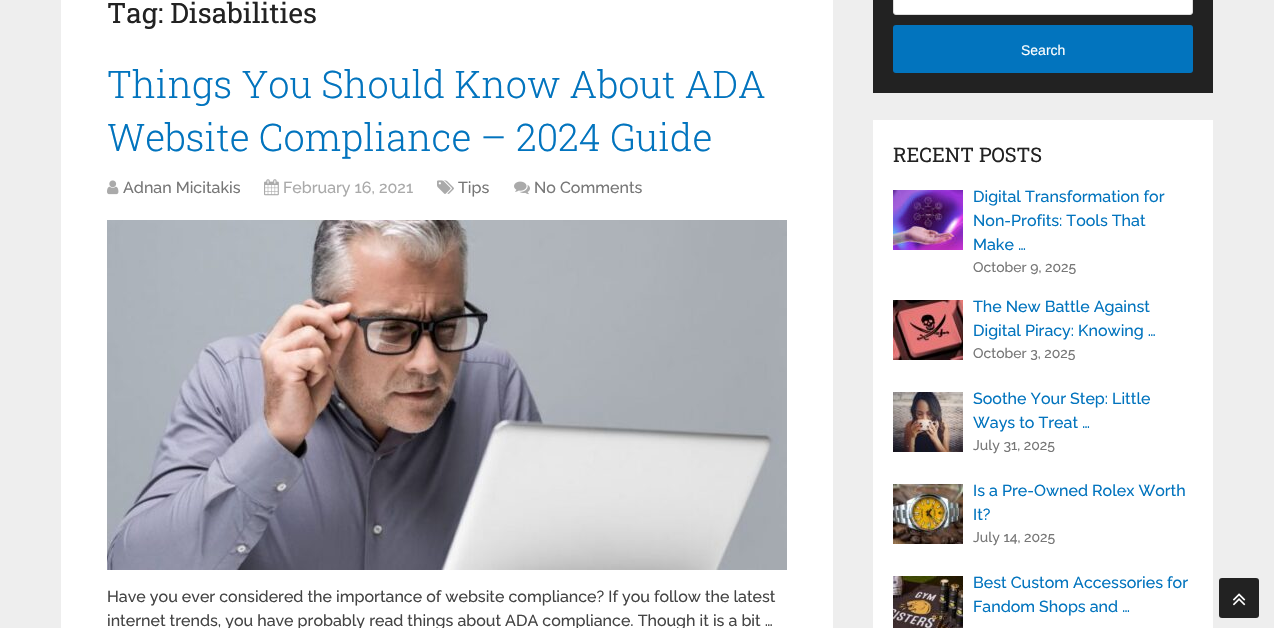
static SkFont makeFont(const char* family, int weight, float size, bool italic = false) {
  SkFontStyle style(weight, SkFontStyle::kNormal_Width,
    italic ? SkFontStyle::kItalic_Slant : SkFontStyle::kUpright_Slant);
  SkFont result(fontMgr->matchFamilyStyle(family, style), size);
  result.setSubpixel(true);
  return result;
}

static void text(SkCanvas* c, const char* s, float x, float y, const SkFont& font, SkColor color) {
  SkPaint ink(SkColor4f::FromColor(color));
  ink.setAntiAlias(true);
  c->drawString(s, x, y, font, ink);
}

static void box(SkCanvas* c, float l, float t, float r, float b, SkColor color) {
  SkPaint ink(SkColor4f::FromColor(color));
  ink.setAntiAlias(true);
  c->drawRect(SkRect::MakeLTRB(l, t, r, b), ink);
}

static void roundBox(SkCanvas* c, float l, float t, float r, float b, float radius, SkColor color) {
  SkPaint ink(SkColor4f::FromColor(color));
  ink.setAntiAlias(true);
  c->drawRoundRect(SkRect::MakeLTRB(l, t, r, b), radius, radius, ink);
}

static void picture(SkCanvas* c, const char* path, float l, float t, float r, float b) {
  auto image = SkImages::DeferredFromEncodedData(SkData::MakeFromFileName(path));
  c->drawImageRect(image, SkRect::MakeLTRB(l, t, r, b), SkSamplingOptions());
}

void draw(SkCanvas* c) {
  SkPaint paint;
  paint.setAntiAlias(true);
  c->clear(0xffeeeeee);
  box(c, 61, 0, 833, 628, 0xffffffff);
  SkFont face1 = makeFont("Roboto Slab", 400, 28);
  text(c, "Tag: Disabilities", 107, 23, face1, 0xff222222);
  SkFont face2 = makeFont("Roboto Slab", 300, 38);
  text(c, "Things You Should Know About ADA", 107, 98, face2, 0xff0274be);
  text(c, "Website Compliance – 2024 Guide", 107, 151, face2, 0xff0274be);
  picture(c, "img_01.png", 107, 180, 119, 195);
  SkFont face3 = makeFont("Raleway", 500, 16);
  text(c, "Adnan Micitakis", 123, 193, face3, 0xff777777);
  picture(c, "img_02.png", 264, 179, 279, 196);
  text(c, "February 16, 2021", 283, 193, face3, 0xffaaaaaa);
  picture(c, "img_03.png", 437, 180, 454, 194);
  text(c, "Tips", 458, 193, face3, 0xff777777);
  picture(c, "img_04.png", 514, 181, 530, 195);
  text(c, "No Comments", 534, 193, face3, 0xff777777);
  picture(c, "img_05.png", 107, 220, 787, 570);
  text(c, "Have you ever considered the importance of website compliance? If you follow the latest", 107, 602, face3, 0xff444444);
  text(c, "internet trends, you have probably read things about ADA compliance. Though it is a bit …", 107, 626, face3, 0xff444444);
  box(c, 873, 0, 1213, 93, 0xff222222);
  paint.setColor(0xffffffff);
  c->drawRoundRect(SkRect::MakeLTRB(893.5f, -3.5f, 1192.5f, 14.5f), 2.5f, 2.5f, paint);
  paint.setStyle(SkPaint::kStroke_Style);
  paint.setStrokeWidth(1);
  paint.setColor(0xffdddddd);
  c->drawRoundRect(SkRect::MakeLTRB(893.5f, -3.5f, 1192.5f, 14.5f), 2.5f, 2.5f, paint);
  roundBox(c, 893, 25, 1193, 73, 3, 0xff0274be);
  SkFont face4 = makeFont("Liberation Sans", 400, 14);
  text(c, "Search", 1021, 55, face4, 0xffffffff);
  box(c, 873, 120, 1213, 628, 0xffffffff);
  SkFont face5 = makeFont("Roboto Slab", 400, 20);
  text(c, "RECENT POSTS", 893, 162, face5, 0xff222222);
  picture(c, "img_06.png", 893, 190, 963, 250);
  text(c, "Digital Transformation for", 973, 202, face3, 0xff0274be);
  text(c, "Non-Profits: Tools That", 973, 226, face3, 0xff0274be);
  text(c, "Make …", 973, 250, face3, 0xff0274be);
  SkFont face6 = makeFont("Raleway", 500, 14);
  text(c, "October 9, 2025", 973, 272, face6, 0xff777777);
  picture(c, "img_07.png", 893, 300, 963, 360);
  text(c, "The New Battle Against", 973, 312, face3, 0xff0274be);
  text(c, "Digital Piracy: Knowing …", 973, 336, face3, 0xff0274be);
  text(c, "October 3, 2025", 973, 358, face6, 0xff777777);
  picture(c, "img_08.png", 893, 392, 963, 452);
  text(c, "Soothe Your Step: Little", 973, 404, face3, 0xff0274be);
  text(c, "Ways to Treat …", 973, 428, face3, 0xff0274be);
  text(c, "July 31, 2025", 973, 450, face6, 0xff777777);
  picture(c, "img_09.png", 893, 484, 963, 544);
  text(c, "Is a Pre-Owned Rolex Worth", 973, 496, face3, 0xff0274be);
  text(c, "It?", 973, 520, face3, 0xff0274be);
  text(c, "July 14, 2025", 973, 542, face6, 0xff777777);
  picture(c, "img_10.png", 893, 576, 963, 628);
  text(c, "Best Custom Accessories for", 973, 588, face3, 0xff0274be);
  text(c, "Fandom Shops and …", 973, 612, face3, 0xff0274be);
  roundBox(c, 1219, 578, 1259, 618, 3, 0xff222222);
  picture(c, "img_11.png", 1233, 593, 1246, 606);
}
